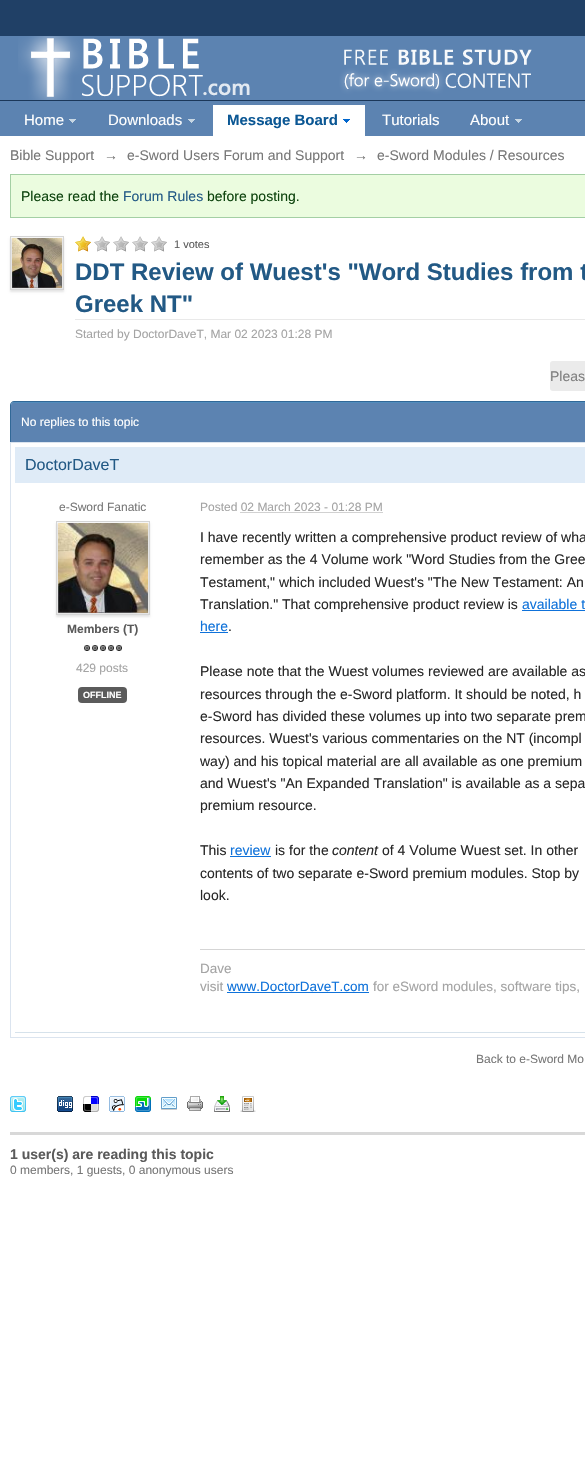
static SkFont makeFont(const char* family, int weight, float size, bool italic = false) {
  SkFontStyle style(weight, SkFontStyle::kNormal_Width,
    italic ? SkFontStyle::kItalic_Slant : SkFontStyle::kUpright_Slant);
  SkFont result(fontMgr->matchFamilyStyle(family, style), size);
  result.setSubpixel(true);
  return result;
}

static void text(SkCanvas* c, const char* s, float x, float y, const SkFont& font, SkColor color) {
  SkPaint ink(SkColor4f::FromColor(color));
  ink.setAntiAlias(true);
  c->drawString(s, x, y, font, ink);
}

static void box(SkCanvas* c, float l, float t, float r, float b, SkColor color) {
  SkPaint ink(SkColor4f::FromColor(color));
  ink.setAntiAlias(true);
  c->drawRect(SkRect::MakeLTRB(l, t, r, b), ink);
}

static void roundBox(SkCanvas* c, float l, float t, float r, float b, float radius, SkColor color) {
  SkPaint ink(SkColor4f::FromColor(color));
  ink.setAntiAlias(true);
  c->drawRoundRect(SkRect::MakeLTRB(l, t, r, b), radius, radius, ink);
}

static void picture(SkCanvas* c, const char* path, float l, float t, float r, float b) {
  auto image = SkImages::DeferredFromEncodedData(SkData::MakeFromFileName(path));
  c->drawImageRect(image, SkRect::MakeLTRB(l, t, r, b), SkSamplingOptions());
}

void draw(SkCanvas* c) {
  SkPaint paint;
  paint.setAntiAlias(true);
  c->clear(0xff204066);
  box(c, 0, 36, 585, 100, 0xff5c83b1);
  box(c, 0, 100, 585, 101, 0xff1b3759);
  picture(c, "img_01.png", 18, 36, 532, 100);
  box(c, 0, 101, 585, 136, 0xff5c83b1);
  SkFont face1 = makeFont("Liberation Sans", 400, 15);
  text(c, "Home", 24, 125, face1, 0xffffffff);
  picture(c, "img_02.png", 69, 119, 76, 123);
  text(c, "Downloads", 108, 125, face1, 0xffffffff);
  picture(c, "img_02.png", 188, 119, 195, 123);
  box(c, 213, 105, 365, 136, 0xffffffff);
  SkFont face2 = makeFont("Liberation Sans", 700, 15);
  text(c, "Message Board", 227, 125, face2, 0xff0b5794);
  picture(c, "img_03.png", 343, 119, 350, 123);
  text(c, "Tutorials", 382, 125, face1, 0xffffffff);
  text(c, "About", 470, 125, face1, 0xffffffff);
  picture(c, "img_02.png", 515, 119, 522, 123);
  box(c, 0, 136, 585, 1471, 0xffffffff);
  SkFont face3 = makeFont("Liberation Sans", 400, 14);
  text(c, "Bible Support", 10, 160, face3, 0xff777777);
  text(c, "→", 104, 160, face3, 0xff777777);
  text(c, "e-Sword Users Forum and Support", 127, 160, face3, 0xff777777);
  text(c, "→", 354, 160, face3, 0xff777777);
  text(c, "e-Sword Modules / Resources", 377, 160, face3, 0xff777777);
  paint.setColor(0xffebfcdf);
  c->drawRect(SkRect::MakeLTRB(10.5f, 174.5f, 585.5f, 217.5f), paint);
  paint.setStyle(SkPaint::kStroke_Style);
  paint.setStrokeWidth(1);
  paint.setColor(0xffa4cfa4);
  c->drawRect(SkRect::MakeLTRB(10.5f, 174.5f, 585.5f, 217.5f), paint);
  text(c, "Please read the", 21, 201, face3, 0xff0e440e);
  text(c, "Forum Rules", 123, 201, face3, 0xff225985);
  text(c, "before posting.", 207, 201, face3, 0xff0e440e);
  paint.setStyle(SkPaint::kFill_Style);
  paint.setColor(0x1a000000);
  paint.setMaskFilter(SkMaskFilter::MakeBlur(kNormal_SkBlurStyle, 1));
  c->drawRect(SkRect::MakeLTRB(10, 238, 64, 292), paint);
  paint.setMaskFilter(nullptr);
  paint.setStyle(SkPaint::kStroke_Style);
  paint.setColor(0xffd5d5d5);
  c->drawRect(SkRect::MakeLTRB(10.5f, 236.5f, 63.5f, 289.5f), paint);
  picture(c, "img_04.png", 12, 238, 62, 288);
  picture(c, "img_05.png", 75, 236, 91, 252);
  picture(c, "img_06.png", 94, 236, 110, 252);
  picture(c, "img_06.png", 113, 236, 129, 252);
  picture(c, "img_06.png", 132, 236, 148, 252);
  picture(c, "img_06.png", 151, 236, 167, 252);
  SkFont face4 = makeFont("Liberation Sans", 400, 11);
  text(c, "1 votes", 174, 248, face4, 0xff5a5a5a);
  box(c, 75, 319, 585, 320, 0xffe9e9e9);
  SkFont face5 = makeFont("Liberation Sans", 700, 24);
  text(c, "DDT Review of Wuest's \"Word Studies from t", 75, 280, face5, 0xff225985);
  text(c, "Greek NT\"", 75, 312, face5, 0xff225985);
  SkFont face6 = makeFont("Liberation Sans", 400, 12);
  text(c, "Started by DoctorDaveT, Mar 02 2023 01:28 PM", 75, 338, face6, 0xffa4a4a4);
  roundBox(c, 550, 361, 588, 391, 3, 0xffebebeb);
  text(c, "Pleas", 550, 381, face3, 0xff7f7f7f);
  paint.setStyle(SkPaint::kFill_Style);
  paint.setColor(0xff5c83b1);
  c->drawPath(SkPathBuilder().moveTo(14, 402).lineTo(585, 402).cubicTo(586.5f, 402, 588, 403.5f, 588, 405).lineTo(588, 442).lineTo(11, 442).lineTo(11, 405).cubicTo(11, 403.5f, 12.5f, 402, 14, 402).close().detach(), paint);
  paint.setColor(0xff528cbc);
  c->drawPath(SkPathBuilder().moveTo(14, 403).lineTo(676, 403).cubicTo(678, 403, 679, 404, 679, 406).lineTo(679, 405).cubicTo(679, 403, 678, 402, 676, 402).lineTo(14, 402).cubicTo(12, 402, 11, 403, 11, 405).lineTo(11, 406).cubicTo(11, 404, 12, 403, 14, 403).close().detach(), paint);
  paint.setColor(0xff316897);
  c->drawPath(SkPathBuilder(SkPathFillType::kEvenOdd).moveTo(14, 401).lineTo(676, 401).cubicTo(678, 401, 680, 403, 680, 405).lineTo(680, 442).lineTo(10, 442).lineTo(10, 405).cubicTo(10, 403, 12, 401, 14, 401).close().moveTo(14, 402).lineTo(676, 402).cubicTo(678, 402, 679, 403, 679, 405).lineTo(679, 442).lineTo(11, 442).lineTo(11, 405).cubicTo(11, 403, 12, 402, 14, 402).close().detach(), paint);
  text(c, "No replies to this topic", 21, 426, face6, 0xffffffff);
  paint.setStyle(SkPaint::kStroke_Style);
  paint.setColor(0xffdbe4ef);
  c->drawRect(SkRect::MakeLTRB(10.5f, 442.5f, 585.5f, 1037.5f), paint);
  box(c, 15, 1032, 585, 1033, 0xffd6e2eb);
  box(c, 15, 447, 585, 483, 0xffdfebf7);
  SkFont face7 = makeFont("Liberation Sans", 400, 16);
  text(c, "DoctorDaveT", 25, 470, face7, 0xff225985);
  text(c, "e-Sword Fanatic", 59, 511, face6, 0xff777777);
  paint.setStyle(SkPaint::kFill_Style);
  paint.setColor(0x1a000000);
  paint.setMaskFilter(SkMaskFilter::MakeBlur(kNormal_SkBlurStyle, 1));
  c->drawRect(SkRect::MakeLTRB(56, 523, 150, 617), paint);
  paint.setMaskFilter(nullptr);
  paint.setStyle(SkPaint::kStroke_Style);
  paint.setColor(0xffd5d5d5);
  c->drawRect(SkRect::MakeLTRB(56.5f, 521.5f, 149.5f, 614.5f), paint);
  picture(c, "img_07.png", 58, 523, 148, 613);
  SkFont face8 = makeFont("Liberation Sans", 700, 12);
  text(c, "Members (T)", 67, 633, face8, 0xff5a5a5a);
  picture(c, "img_08.png", 84, 645, 90, 651);
  picture(c, "img_08.png", 92, 645, 98, 651);
  picture(c, "img_08.png", 100, 645, 106, 651);
  picture(c, "img_08.png", 108, 645, 114, 651);
  picture(c, "img_08.png", 116, 645, 122, 651);
  text(c, "429 posts", 76, 672, face6, 0xffa4a4a4);
  roundBox(c, 78, 687, 127, 703, 4, 0xff5b5b5b);
  SkFont face9 = makeFont("Liberation Sans", 700, 9);
  text(c, "OFFLINE", 83, 698, face9, 0xffffffff);
  text(c, "Posted 02 March 2023 - 01:28 PM", 200, 511, face6, 0xffa4a4a4);
  paint.setColor(0xffa4a4a4);
  paint.setPathEffect(SkDashPathEffect::Make({{1, 1}}, 0));
  c->drawPath(SkPathBuilder().moveTo(240.5f, 512.5f).lineTo(383, 512.5f).detach(), paint);
  paint.setPathEffect(nullptr);
  text(c, "I have recently written a comprehensive product review of wha", 200, 542, face3, 0xff282828);
  text(c, "remember as the 4 Volume work \"Word Studies from the Gree", 200, 564, face3, 0xff282828);
  text(c, "Testament,\" which included Wuest's \"The New Testament: An", 200, 587, face3, 0xff282828);
  text(c, "Translation.\" That comprehensive product review is", 200, 609, face3, 0xff282828);
  text(c, "available t", 522, 609, face3, 0xff0f72da);
  box(c, 522, 610, 585, 611, 0xff0f72da);
  text(c, "here", 200, 631, face3, 0xff0f72da);
  box(c, 200, 632, 228, 633, 0xff0f72da);
  text(c, ".", 228, 631, face3, 0xff282828);
  text(c, "Please note that the Wuest volumes reviewed are available as", 200, 676, face3, 0xff282828);
  text(c, "resources through the e-Sword platform. It should be noted, h", 200, 699, face3, 0xff282828);
  text(c, "e-Sword has divided these volumes up into two separate prem", 200, 721, face3, 0xff282828);
  text(c, "resources. Wuest's various commentaries on the NT (incompl", 200, 743, face3, 0xff282828);
  text(c, "way) and his topical material are all available as one premium", 200, 766, face3, 0xff282828);
  text(c, "and Wuest's \"An Expanded Translation\" is available as a sepa", 200, 788, face3, 0xff282828);
  text(c, "premium resource.", 200, 810, face3, 0xff282828);
  text(c, "This", 200, 855, face3, 0xff282828);
  text(c, "review", 230, 855, face3, 0xff0f72da);
  box(c, 230, 856, 271, 857, 0xff0f72da);
  text(c, "is for the", 275, 855, face3, 0xff282828);
  SkFont face10 = makeFont("Liberation Sans", 400, 14, true);
  text(c, "content", 332, 855, face10, 0xff282828);
  text(c, "of 4 Volume Wuest set. In other", 382, 855, face3, 0xff282828);
  text(c, "contents of two separate e-Sword premium modules. Stop by", 200, 878, face3, 0xff282828);
  text(c, "look.", 200, 900, face3, 0xff282828);
  box(c, 200, 949, 585, 950, 0xffd5d5d5);
  SkFont face11 = makeFont("Liberation Sans", 400, 13.5f);
  text(c, "Dave", 200, 973, face11, 0xffa4a4a4);
  text(c, "visit", 200, 991, face11, 0xffa4a4a4);
  text(c, "www.DoctorDaveT.com", 227, 991, face11, 0xff0f72da);
  box(c, 227, 992, 369, 993, 0xff0f72da);
  text(c, "for eSword modules, software tips,", 373, 991, face11, 0xffa4a4a4);
  text(c, "Back to e-Sword Mo", 476, 1063, face6, 0xff777777);
  picture(c, "img_09.png", 10, 1096, 26, 1112);
  picture(c, "img_10.png", 57, 1096, 73, 1112);
  picture(c, "img_11.png", 83, 1096, 99, 1112);
  picture(c, "img_12.png", 109, 1096, 125, 1112);
  picture(c, "img_13.png", 135, 1096, 151, 1112);
  picture(c, "img_14.png", 161, 1097, 177, 1110);
  picture(c, "img_15.png", 187, 1096, 203, 1111);
  picture(c, "img_16.png", 214, 1096, 230, 1112);
  picture(c, "img_17.png", 240, 1096, 256, 1112);
  box(c, 10, 1132, 585, 1135, 0xffd8d8d8);
  SkFont face12 = makeFont("Liberation Sans", 700, 14);
  text(c, "1 user(s) are reading this topic", 10, 1159, face12, 0xff5a5a5a);
  text(c, "0 members, 1 guests, 0 anonymous users", 10, 1174, face6, 0xff777777);
}
